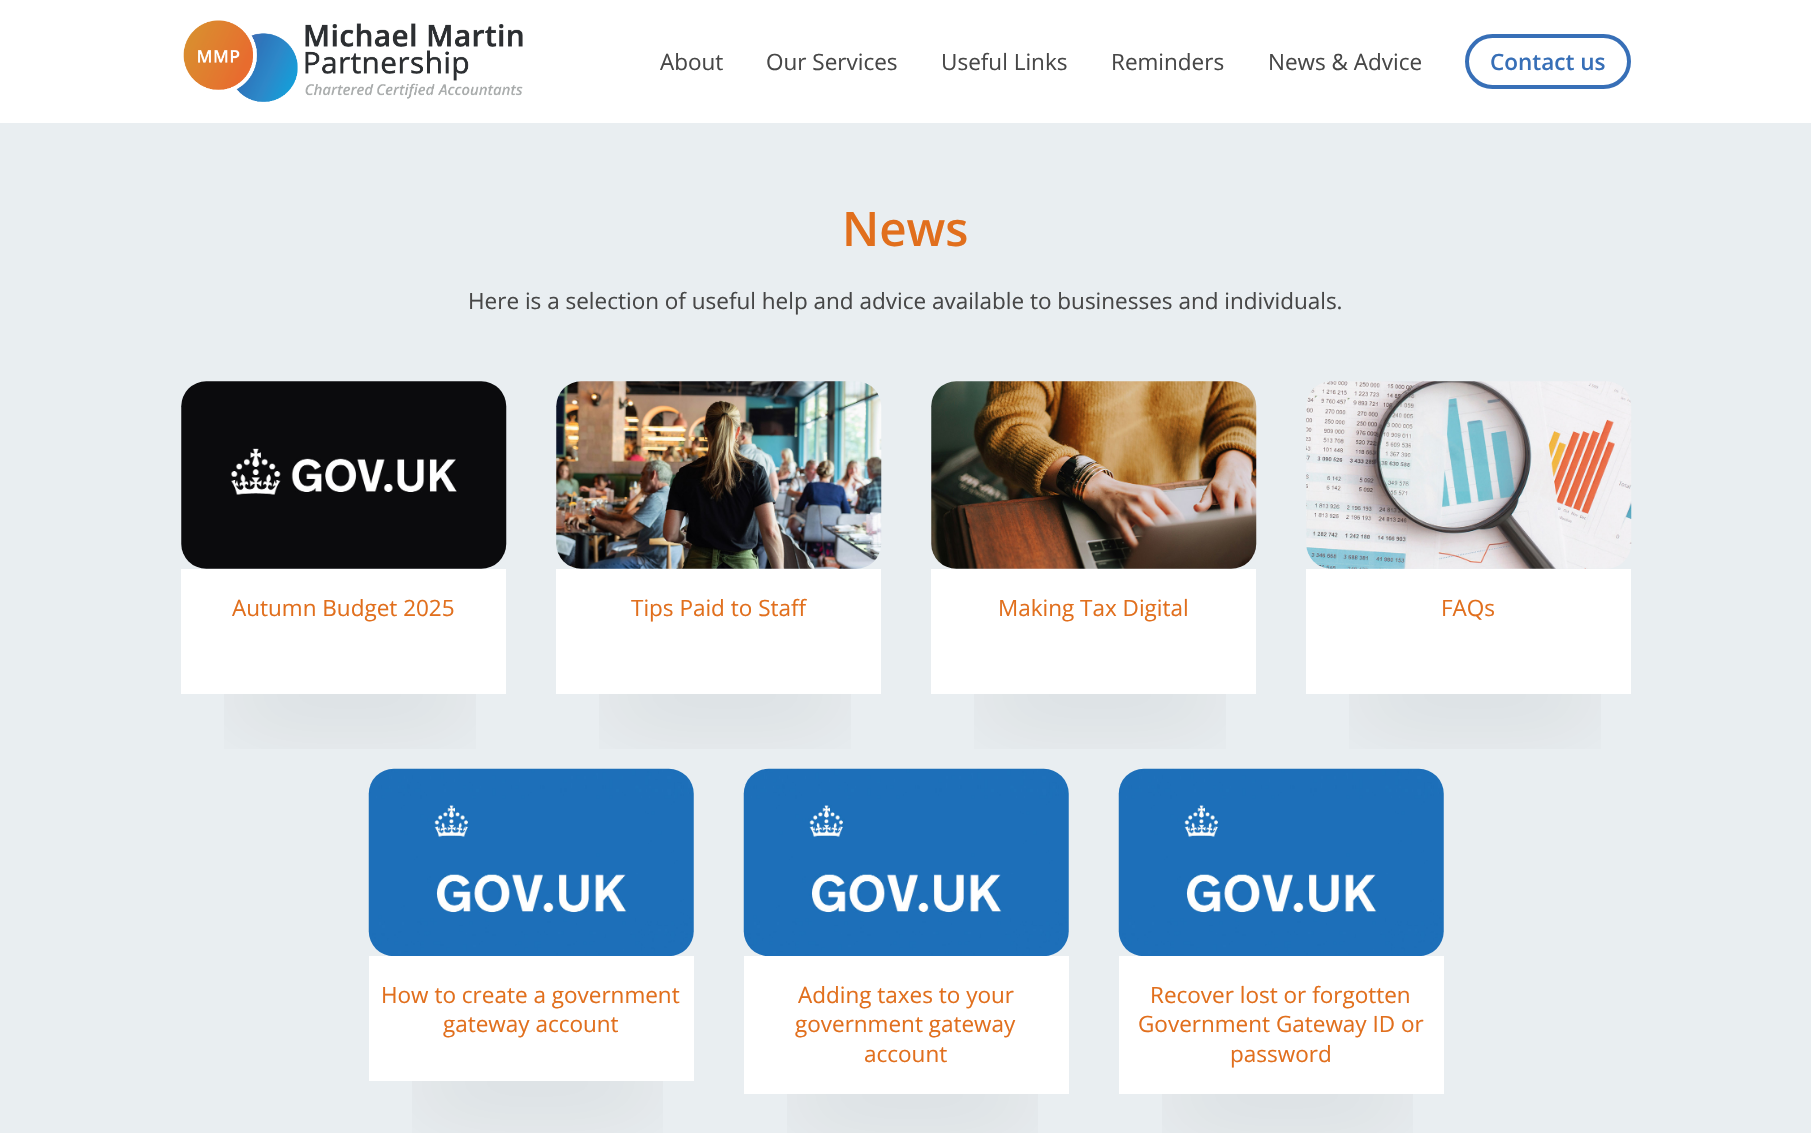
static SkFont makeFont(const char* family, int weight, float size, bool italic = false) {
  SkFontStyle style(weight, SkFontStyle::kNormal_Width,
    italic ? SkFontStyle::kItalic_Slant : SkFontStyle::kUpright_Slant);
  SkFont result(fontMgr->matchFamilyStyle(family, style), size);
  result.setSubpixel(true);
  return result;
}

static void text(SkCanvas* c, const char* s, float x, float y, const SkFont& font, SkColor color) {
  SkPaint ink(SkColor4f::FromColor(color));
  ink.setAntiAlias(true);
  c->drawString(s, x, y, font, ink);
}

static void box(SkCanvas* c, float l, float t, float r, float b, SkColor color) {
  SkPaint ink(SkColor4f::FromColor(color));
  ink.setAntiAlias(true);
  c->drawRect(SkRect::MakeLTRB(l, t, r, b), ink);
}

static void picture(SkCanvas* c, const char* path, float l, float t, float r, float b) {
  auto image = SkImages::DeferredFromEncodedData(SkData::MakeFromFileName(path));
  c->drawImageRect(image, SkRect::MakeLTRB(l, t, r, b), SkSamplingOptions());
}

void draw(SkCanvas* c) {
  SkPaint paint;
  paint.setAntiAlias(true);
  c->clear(0xffffffff);
  picture(c, "img_01.png", 183, 20, 523, 102);
  SkFont face1 = makeFont("Open Sans", 400, 22.5f);
  text(c, "About", 660, 70, face1, 0xff474747);
  text(c, "Our Services", 766, 70, face1, 0xff474747);
  text(c, "Useful Links", 941, 70, face1, 0xff474747);
  text(c, "Reminders", 1111, 70, face1, 0xff474747);
  text(c, "News & Advice", 1268, 70, face1, 0xff474747);
  paint.setStyle(SkPaint::kStroke_Style);
  paint.setStrokeWidth(4);
  paint.setColor(0xff376fb7);
  c->drawRoundRect(SkRect::MakeLTRB(1467, 36, 1629, 87), 25.5f, 25.5f, paint);
  SkFont face2 = makeFont("Open Sans", 600, 22.5f);
  text(c, "Contact us", 1490, 70, face2, 0xff376fb7);
  box(c, 0, 123, 1811, 1133, 0xffe9eef1);
  SkFont face3 = makeFont("Open Sans", 600, 47.5f);
  text(c, "News", 842, 246, face3, 0xffe16f1d);
  text(c, "Here is a selection of useful help and advice available to businesses and individuals.", 468, 309, face1, 0xff474747);
  picture(c, "img_02.png", 181, 381, 507, 569);
  box(c, 181, 569, 506, 694, 0xffffffff);
  c->save();
  c->clipRect(SkRect::MakeLTRB(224, 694, 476, 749));
  paint.setStyle(SkPaint::kFill_Style);
  paint.setColor(0x33000000);
  paint.setMaskFilter(SkMaskFilter::MakeBlur(kNormal_SkBlurStyle, 43));
  c->drawRect(SkRect::MakeLTRB(231, 681, 469, 706), paint);
  paint.setMaskFilter(nullptr);
  c->restore();
  text(c, "Autumn Budget 2025", 232, 616, face1, 0xffe16f1d);
  picture(c, "img_03.png", 556, 381, 882, 569);
  box(c, 556, 569, 881, 694, 0xffffffff);
  c->save();
  c->clipRect(SkRect::MakeLTRB(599, 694, 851, 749));
  paint.setMaskFilter(SkMaskFilter::MakeBlur(kNormal_SkBlurStyle, 43));
  c->drawRect(SkRect::MakeLTRB(606, 681, 844, 706), paint);
  paint.setMaskFilter(nullptr);
  c->restore();
  text(c, "Tips Paid to Staff", 631, 616, face1, 0xffe16f1d);
  picture(c, "img_04.png", 931, 381, 1257, 569);
  box(c, 931, 569, 1256, 694, 0xffffffff);
  c->save();
  c->clipRect(SkRect::MakeLTRB(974, 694, 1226, 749));
  paint.setMaskFilter(SkMaskFilter::MakeBlur(kNormal_SkBlurStyle, 43));
  c->drawRect(SkRect::MakeLTRB(981, 681, 1219, 706), paint);
  paint.setMaskFilter(nullptr);
  c->restore();
  text(c, "Making Tax Digital", 998, 616, face1, 0xffe16f1d);
  picture(c, "img_05.png", 1306, 381, 1632, 569);
  box(c, 1306, 569, 1631, 694, 0xffffffff);
  c->save();
  c->clipRect(SkRect::MakeLTRB(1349, 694, 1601, 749));
  paint.setMaskFilter(SkMaskFilter::MakeBlur(kNormal_SkBlurStyle, 43));
  c->drawRect(SkRect::MakeLTRB(1356, 681, 1594, 706), paint);
  paint.setMaskFilter(nullptr);
  c->restore();
  text(c, "FAQs", 1441, 616, face1, 0xffe16f1d);
  picture(c, "img_06.png", 368, 768, 694, 956);
  box(c, 369, 956, 694, 1081, 0xffffffff);
  c->save();
  c->clipRect(SkRect::MakeLTRB(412, 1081, 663, 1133));
  paint.setMaskFilter(SkMaskFilter::MakeBlur(kNormal_SkBlurStyle, 43));
  c->drawRect(SkRect::MakeLTRB(419, 1069, 656, 1094), paint);
  paint.setMaskFilter(nullptr);
  c->restore();
  text(c, "How to create a government", 381, 1003, face1, 0xffe16f1d);
  text(c, "gateway account", 443, 1032, face1, 0xffe16f1d);
  picture(c, "img_07.png", 743, 768, 1069, 956);
  box(c, 744, 956, 1069, 1094, 0xffffffff);
  c->save();
  c->clipRect(SkRect::MakeLTRB(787, 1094, 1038, 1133));
  paint.setMaskFilter(SkMaskFilter::MakeBlur(kNormal_SkBlurStyle, 43));
  c->drawRect(SkRect::MakeLTRB(794, 1081, 1031, 1106), paint);
  paint.setMaskFilter(nullptr);
  c->restore();
  text(c, "Adding taxes to your", 798, 1003, face1, 0xffe16f1d);
  text(c, "government gateway", 795, 1032, face1, 0xffe16f1d);
  text(c, "account", 864, 1062, face1, 0xffe16f1d);
  picture(c, "img_08.png", 1118, 768, 1444, 956);
  box(c, 1119, 956, 1444, 1094, 0xffffffff);
  c->save();
  c->clipRect(SkRect::MakeLTRB(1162, 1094, 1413, 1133));
  paint.setMaskFilter(SkMaskFilter::MakeBlur(kNormal_SkBlurStyle, 43));
  c->drawRect(SkRect::MakeLTRB(1169, 1081, 1406, 1106), paint);
  paint.setMaskFilter(nullptr);
  c->restore();
  text(c, "Recover lost or forgotten", 1150, 1003, face1, 0xffe16f1d);
  text(c, "Government Gateway ID or", 1138, 1032, face1, 0xffe16f1d);
  text(c, "password", 1230, 1062, face1, 0xffe16f1d);
}
